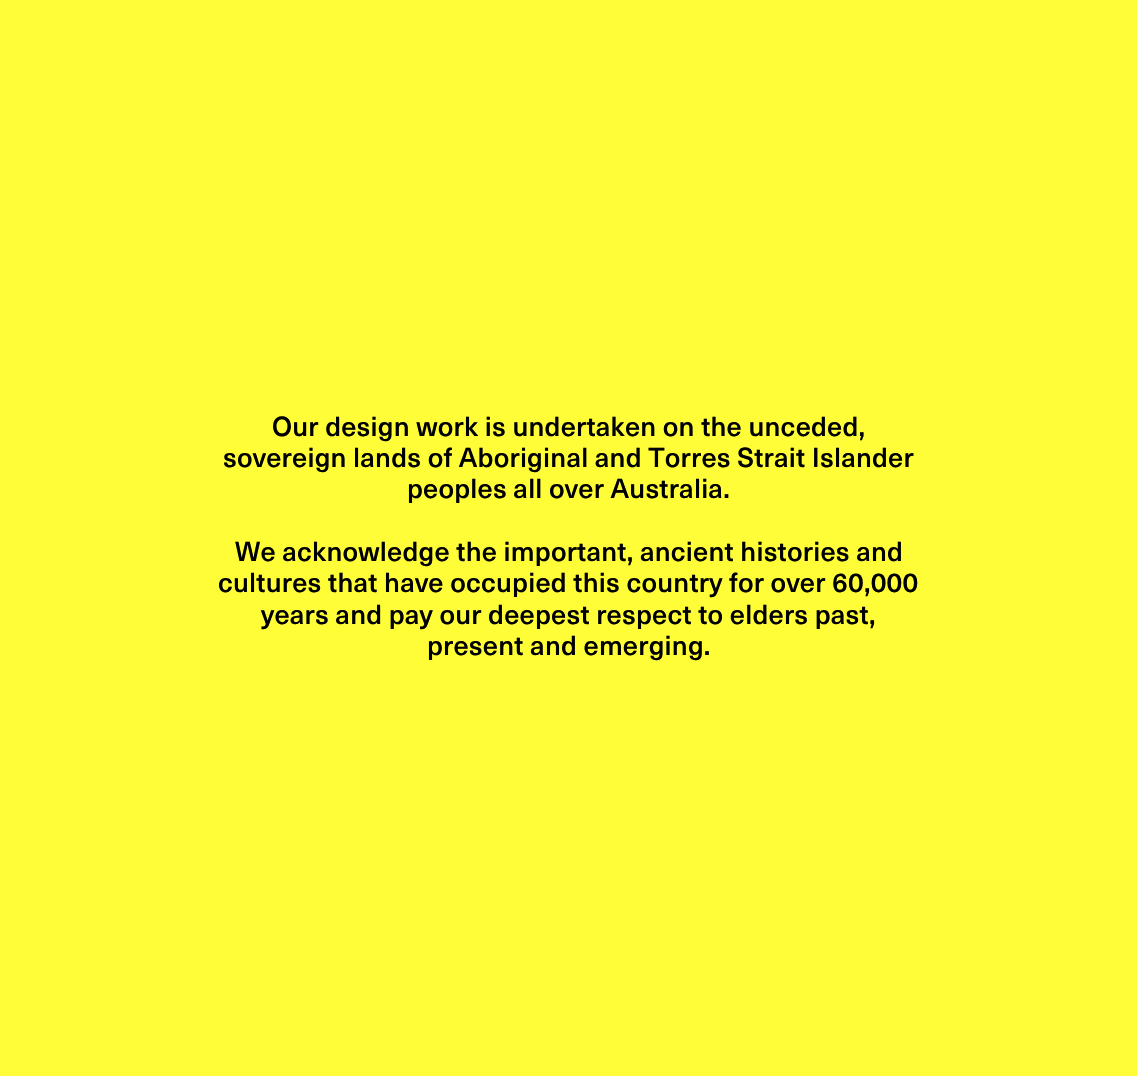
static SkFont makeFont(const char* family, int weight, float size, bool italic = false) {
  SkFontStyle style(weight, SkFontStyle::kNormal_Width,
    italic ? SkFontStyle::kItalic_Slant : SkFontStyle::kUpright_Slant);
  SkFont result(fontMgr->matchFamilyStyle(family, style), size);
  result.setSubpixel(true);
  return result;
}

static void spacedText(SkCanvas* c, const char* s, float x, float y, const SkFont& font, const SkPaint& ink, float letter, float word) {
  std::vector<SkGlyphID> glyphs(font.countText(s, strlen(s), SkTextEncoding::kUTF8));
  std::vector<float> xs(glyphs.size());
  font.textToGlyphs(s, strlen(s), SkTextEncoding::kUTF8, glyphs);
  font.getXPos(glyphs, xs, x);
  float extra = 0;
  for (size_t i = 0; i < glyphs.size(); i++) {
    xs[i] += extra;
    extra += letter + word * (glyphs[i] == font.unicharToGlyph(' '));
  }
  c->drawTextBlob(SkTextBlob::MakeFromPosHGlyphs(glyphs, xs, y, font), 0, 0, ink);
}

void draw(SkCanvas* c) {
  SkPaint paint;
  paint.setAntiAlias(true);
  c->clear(0xfffffd37);
  SkFont face1 = makeFont("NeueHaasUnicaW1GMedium", 500, 27);
  paint.setColor(0xff000000);
  spacedText(c, "Our design work is undertaken on the unceded,", 272, 436, face1, paint, 0.22f, 0);
  spacedText(c, "sovereign lands of Aboriginal and Torres Strait Islander", 223, 467, face1, paint, 0.22f, 0);
  spacedText(c, "peoples all over Australia.", 407, 498, face1, paint, 0.22f, 0);
  spacedText(c, "We acknowledge the important, ancient histories and", 235, 561, face1, paint, 0.22f, 0);
  spacedText(c, "cultures that have occupied this country for over 60,000", 218, 592, face1, paint, 0.22f, 0);
  spacedText(c, "years and pay our deepest respect to elders past,", 261, 624, face1, paint, 0.22f, 0);
  spacedText(c, "present and emerging.", 427, 655, face1, paint, 0.22f, 0);
}
